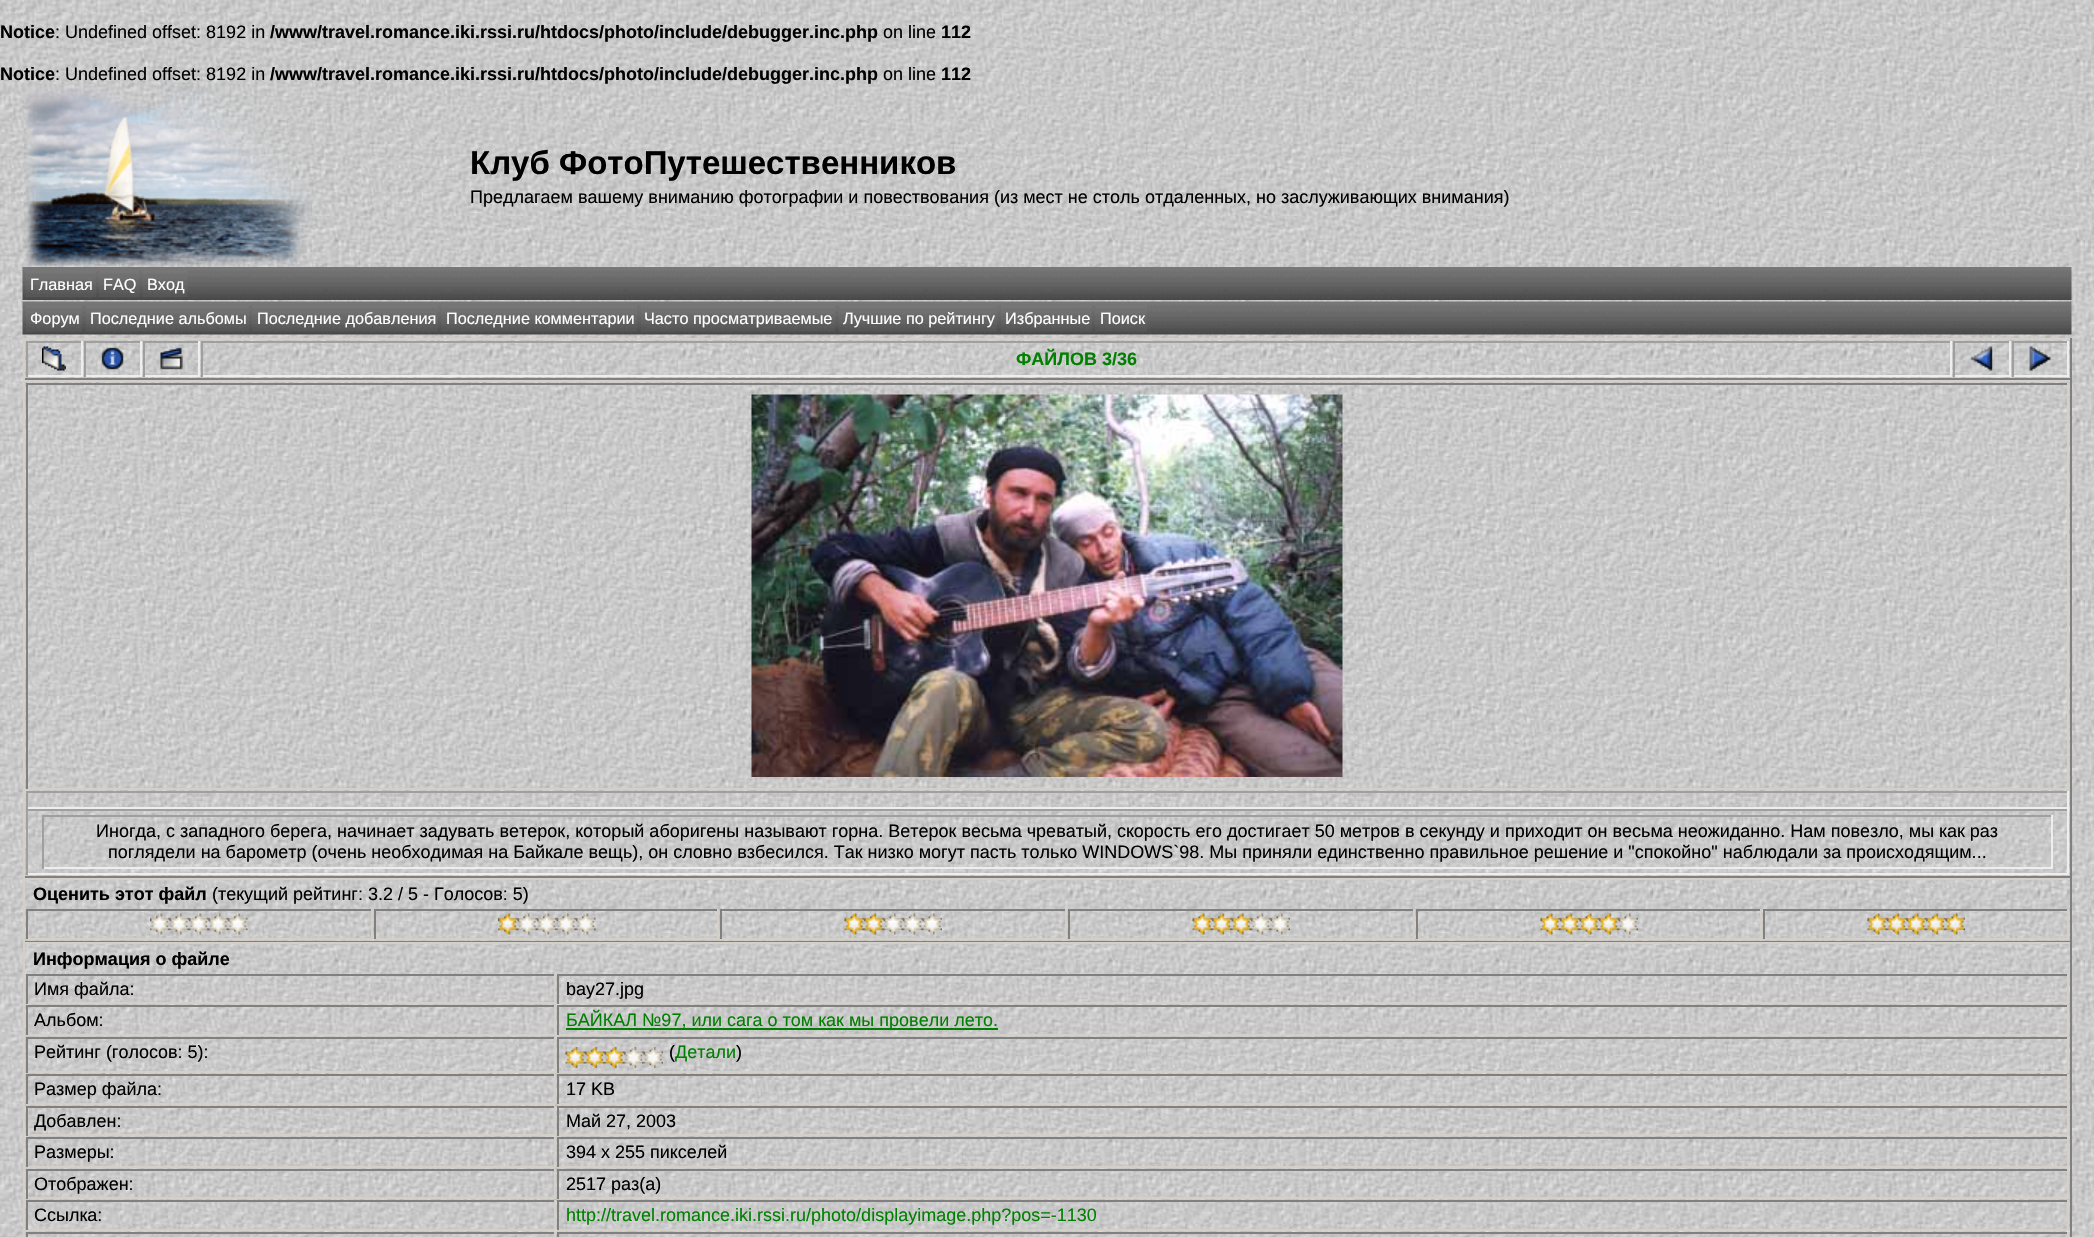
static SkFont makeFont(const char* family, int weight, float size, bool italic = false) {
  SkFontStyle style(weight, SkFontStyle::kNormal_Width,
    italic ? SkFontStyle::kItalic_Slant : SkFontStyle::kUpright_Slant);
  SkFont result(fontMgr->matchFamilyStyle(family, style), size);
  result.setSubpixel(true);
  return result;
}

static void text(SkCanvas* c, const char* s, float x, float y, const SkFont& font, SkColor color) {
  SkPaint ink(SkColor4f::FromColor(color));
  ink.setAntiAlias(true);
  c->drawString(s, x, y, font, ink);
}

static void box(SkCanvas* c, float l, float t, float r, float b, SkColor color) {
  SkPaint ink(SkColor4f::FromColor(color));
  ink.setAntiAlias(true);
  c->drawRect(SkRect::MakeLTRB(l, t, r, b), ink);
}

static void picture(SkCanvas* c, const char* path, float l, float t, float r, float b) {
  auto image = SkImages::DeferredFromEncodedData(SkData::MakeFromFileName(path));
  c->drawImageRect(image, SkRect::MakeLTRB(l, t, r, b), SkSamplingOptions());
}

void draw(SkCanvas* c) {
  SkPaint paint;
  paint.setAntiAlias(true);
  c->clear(0xffffffff);
  picture(c, "img_01.png", 0, 0, 2094, 1237);
  SkFont face1 = makeFont("Liberation Sans", 700, 18);
  text(c, "Notice", 0, 38, face1, 0xff000000);
  SkFont face2 = makeFont("Liberation Sans", 400, 18);
  text(c, ": Undefined offset: 8192 in", 55, 38, face2, 0xff000000);
  text(c, "/www/travel.romance.iki.rssi.ru/htdocs/photo/include/debugger.inc.php", 270, 38, face1, 0xff000000);
  text(c, "on line", 883, 38, face2, 0xff000000);
  text(c, "112", 941, 38, face1, 0xff000000);
  text(c, "Notice", 0, 80, face1, 0xff000000);
  text(c, ": Undefined offset: 8192 in", 55, 80, face2, 0xff000000);
  text(c, "/www/travel.romance.iki.rssi.ru/htdocs/photo/include/debugger.inc.php", 270, 80, face1, 0xff000000);
  text(c, "on line", 883, 80, face2, 0xff000000);
  text(c, "112", 941, 80, face1, 0xff000000);
  picture(c, "img_02.png", 23, 86, 312, 266);
  SkFont face3 = makeFont("Liberation Sans", 700, 33);
  text(c, "Клуб ФотоПутешественников", 470, 174, face3, 0xff000000);
  text(c, "Предлагаем вашему вниманию фотографии и повествования (из мест не столь отдаленных, но заслуживающих внимания)", 470, 203, face2, 0xff000000);
  picture(c, "img_03.png", 22, 267, 2072, 300);
  picture(c, "img_04.png", 25, 270, 96, 297);
  SkFont face4 = makeFont("Liberation Sans", 400, 16.25f);
  text(c, "Главная", 30, 290, face4, 0xffffffff);
  picture(c, "img_05.png", 99, 270, 140, 297);
  text(c, "FAQ", 103, 290, face4, 0xffffffff);
  picture(c, "img_06.png", 142, 270, 188, 297);
  text(c, "Вход", 147, 290, face4, 0xffffffff);
  picture(c, "img_07.png", 22, 301, 2072, 335);
  picture(c, "img_08.png", 26, 305, 82, 332);
  text(c, "Форум", 30, 324, face4, 0xffffffff);
  picture(c, "img_09.png", 86, 305, 249, 332);
  text(c, "Последние альбомы", 90, 324, face4, 0xffffffff);
  picture(c, "img_10.png", 252, 305, 438, 332);
  text(c, "Последние добавления", 257, 324, face4, 0xffffffff);
  picture(c, "img_11.png", 441, 305, 637, 332);
  text(c, "Последние комментарии", 446, 324, face4, 0xffffffff);
  picture(c, "img_12.png", 641, 305, 835, 332);
  text(c, "Часто просматриваемые", 644, 324, face4, 0xffffffff);
  picture(c, "img_13.png", 839, 305, 997, 332);
  text(c, "Лучшие по рейтингу", 843, 324, face4, 0xffffffff);
  picture(c, "img_14.png", 1001, 305, 1092, 332);
  text(c, "Избранные", 1005, 324, face4, 0xffffffff);
  picture(c, "img_15.png", 1095, 305, 1147, 332);
  text(c, "Поиск", 1100, 324, face4, 0xffffffff);
  box(c, 23, 338, 2072, 340, 0xffd4d0c8);
  box(c, 2070, 338, 2072, 380, 0xff808080);
  box(c, 23, 378, 2072, 380, 0xff808080);
  box(c, 23, 338, 25, 380, 0xffd4d0c8);
  box(c, 26, 341, 83, 343, 0xff9f9f9f);
  box(c, 81, 341, 83, 377, 0xffeeeeee);
  box(c, 26, 375, 83, 377, 0xffeeeeee);
  box(c, 26, 341, 28, 377, 0xff9f9f9f);
  picture(c, "img_16.png", 42, 346, 66, 371);
  box(c, 84, 341, 141, 343, 0xff9f9f9f);
  box(c, 140, 341, 142, 377, 0xffeeeeee);
  box(c, 84, 375, 141, 377, 0xffeeeeee);
  box(c, 84, 341, 86, 377, 0xff9f9f9f);
  picture(c, "img_17.png", 101, 347, 124, 370);
  box(c, 143, 341, 200, 343, 0xff9f9f9f);
  box(c, 198, 341, 200, 377, 0xffeeeeee);
  box(c, 143, 375, 200, 377, 0xffeeeeee);
  box(c, 143, 341, 145, 377, 0xff9f9f9f);
  picture(c, "img_18.png", 160, 347, 183, 370);
  box(c, 201, 341, 1952, 343, 0xff9f9f9f);
  box(c, 1950, 341, 1952, 377, 0xffeeeeee);
  box(c, 201, 375, 1952, 377, 0xffeeeeee);
  box(c, 201, 341, 203, 377, 0xff9f9f9f);
  text(c, "ФАЙЛОВ 3/36", 1016, 365, face1, 0xff008000);
  box(c, 1953, 341, 2010, 343, 0xff9f9f9f);
  box(c, 2009, 341, 2011, 377, 0xffeeeeee);
  box(c, 1953, 375, 2010, 377, 0xffeeeeee);
  box(c, 1953, 341, 1955, 377, 0xff9f9f9f);
  picture(c, "img_19.png", 1970, 346, 1993, 371);
  box(c, 2012, 341, 2069, 343, 0xff9f9f9f);
  box(c, 2067, 341, 2069, 377, 0xffeeeeee);
  box(c, 2012, 375, 2069, 377, 0xffeeeeee);
  box(c, 2012, 341, 2014, 377, 0xff9f9f9f);
  picture(c, "img_20.png", 2029, 346, 2051, 371);
  box(c, 23, 380, 2072, 382, 0xffd4d0c8);
  box(c, 2070, 380, 2072, 878, 0xff808080);
  box(c, 23, 876, 2072, 878, 0xff808080);
  box(c, 23, 380, 25, 878, 0xffd4d0c8);
  box(c, 26, 383, 2069, 385, 0xff808080);
  box(c, 2067, 383, 2069, 789, 0xffd4d0c8);
  box(c, 26, 788, 2069, 790, 0xffd4d0c8);
  box(c, 26, 383, 28, 789, 0xff808080);
  picture(c, "img_21.png", 751, 394, 1343, 777);
  box(c, 26, 791, 2069, 793, 0xff9f9f9f);
  box(c, 2067, 791, 2069, 809, 0xffeeeeee);
  box(c, 26, 807, 2069, 809, 0xffeeeeee);
  box(c, 26, 791, 28, 809, 0xff9f9f9f);
  box(c, 26, 809, 2069, 811, 0xff9f9f9f);
  box(c, 2067, 809, 2069, 875, 0xffeeeeee);
  box(c, 26, 873, 2069, 875, 0xffeeeeee);
  box(c, 26, 809, 28, 875, 0xff9f9f9f);
  box(c, 42, 815, 2052, 817, 0xff9f9f9f);
  box(c, 2051, 815, 2053, 869, 0xffeeeeee);
  box(c, 42, 867, 2052, 869, 0xffeeeeee);
  box(c, 42, 815, 44, 869, 0xff9f9f9f);
  text(c, "Иногда, с западного берега, начинает задувать ветерок, который аборигены называют горна. Ветерок весьма чреватый, скорость его достигает 50 метров в секунду и приходит он весьма неожиданно. Нам повезло, мы как раз", 96, 837, face2, 0xff000000);
  text(c, "поглядели на барометр (очень необходимая на Байкале вещь), он словно взбесился. Так низко могут пасть только WINDOWS`98. Мы приняли единственно правильное решение и \"спокойно\" наблюдали за происходящим...", 108, 858, face2, 0xff000000);
  box(c, 23, 878, 2072, 880, 0xffd4d0c8);
  box(c, 2070, 878, 2072, 942, 0xff808080);
  box(c, 23, 941, 2072, 942, 0xff808080);
  box(c, 23, 878, 25, 942, 0xffd4d0c8);
  text(c, "Оценить этот файл", 33, 900, face1, 0xff000000);
  text(c, "(текущий рейтинг: 3.2 / 5 - Голосов: 5)", 212, 900, face2, 0xff000000);
  box(c, 26, 909, 372, 911, 0xff808080);
  box(c, 371, 909, 373, 939, 0xffd4d0c8);
  box(c, 26, 938, 372, 940, 0xffd4d0c8);
  box(c, 26, 909, 28, 939, 0xff808080);
  picture(c, "img_22.png", 150, 913, 248, 935);
  box(c, 374, 909, 719, 911, 0xff808080);
  box(c, 717, 909, 719, 939, 0xffd4d0c8);
  box(c, 374, 938, 719, 940, 0xffd4d0c8);
  box(c, 374, 909, 376, 939, 0xff808080);
  picture(c, "img_23.png", 498, 913, 596, 935);
  box(c, 720, 909, 1067, 911, 0xff808080);
  box(c, 1065, 909, 1067, 939, 0xffd4d0c8);
  box(c, 720, 938, 1067, 940, 0xffd4d0c8);
  box(c, 720, 909, 722, 939, 0xff808080);
  picture(c, "img_24.png", 844, 913, 942, 935);
  box(c, 1068, 909, 1415, 911, 0xff808080);
  box(c, 1413, 909, 1415, 939, 0xffd4d0c8);
  box(c, 1068, 938, 1415, 940, 0xffd4d0c8);
  box(c, 1068, 909, 1070, 939, 0xff808080);
  picture(c, "img_25.png", 1192, 913, 1290, 935);
  box(c, 1416, 909, 1761, 911, 0xff808080);
  box(c, 1760, 909, 1762, 939, 0xffd4d0c8);
  box(c, 1416, 938, 1761, 940, 0xffd4d0c8);
  box(c, 1416, 909, 1418, 939, 0xff808080);
  picture(c, "img_26.png", 1540, 913, 1638, 935);
  box(c, 1763, 909, 2069, 911, 0xff808080);
  box(c, 2067, 909, 2069, 939, 0xffd4d0c8);
  box(c, 1763, 938, 2069, 940, 0xffd4d0c8);
  box(c, 1763, 909, 1765, 939, 0xff808080);
  picture(c, "img_27.png", 1867, 913, 1965, 935);
  box(c, 23, 942, 2072, 944, 0xffd4d0c8);
  box(c, 2070, 942, 2072, 1237, 0xff808080);
  box(c, 23, 942, 25, 1237, 0xffd4d0c8);
  text(c, "Информация о файле", 33, 965, face1, 0xff000000);
  box(c, 26, 974, 555, 976, 0xff808080);
  box(c, 554, 974, 556, 1004, 0xffd4d0c8);
  box(c, 26, 1002, 555, 1004, 0xffd4d0c8);
  box(c, 26, 974, 28, 1004, 0xff808080);
  text(c, "Имя файла:", 34, 995, face2, 0xff000000);
  box(c, 557, 974, 2069, 976, 0xff808080);
  box(c, 2067, 974, 2069, 1004, 0xffd4d0c8);
  box(c, 557, 1002, 2069, 1004, 0xffd4d0c8);
  box(c, 557, 974, 559, 1004, 0xff808080);
  text(c, "bay27.jpg", 566, 995, face2, 0xff000000);
  box(c, 26, 1005, 555, 1007, 0xff808080);
  box(c, 554, 1005, 556, 1035, 0xffd4d0c8);
  box(c, 26, 1034, 555, 1036, 0xffd4d0c8);
  box(c, 26, 1005, 28, 1035, 0xff808080);
  text(c, "Альбом:", 34, 1026, face2, 0xff000000);
  box(c, 557, 1005, 2069, 1007, 0xff808080);
  box(c, 2067, 1005, 2069, 1035, 0xffd4d0c8);
  box(c, 557, 1034, 2069, 1036, 0xffd4d0c8);
  box(c, 557, 1005, 559, 1035, 0xff808080);
  box(c, 566, 1028, 998, 1030, 0xff008000);
  text(c, "БАЙКАЛ №97, или сага о том как мы провели лето.", 566, 1026, face2, 0xff008000);
  box(c, 26, 1037, 555, 1039, 0xff808080);
  box(c, 554, 1037, 556, 1073, 0xffd4d0c8);
  box(c, 26, 1071, 555, 1073, 0xffd4d0c8);
  box(c, 26, 1037, 28, 1073, 0xff808080);
  text(c, "Рейтинг (голосов: 5):", 34, 1058, face2, 0xff000000);
  box(c, 557, 1037, 2069, 1039, 0xff808080);
  box(c, 2067, 1037, 2069, 1073, 0xffd4d0c8);
  box(c, 557, 1071, 2069, 1073, 0xffd4d0c8);
  box(c, 557, 1037, 559, 1073, 0xff808080);
  picture(c, "img_28.png", 565, 1047, 663, 1068);
  text(c, "(", 669, 1058, face2, 0xff000000);
  text(c, "Детали", 675, 1058, face2, 0xff008000);
  text(c, ")", 736, 1058, face2, 0xff000000);
  box(c, 26, 1074, 555, 1076, 0xff808080);
  box(c, 554, 1074, 556, 1104, 0xffd4d0c8);
  box(c, 26, 1103, 555, 1105, 0xffd4d0c8);
  box(c, 26, 1074, 28, 1104, 0xff808080);
  text(c, "Размер файла:", 34, 1095, face2, 0xff000000);
  box(c, 557, 1074, 2069, 1076, 0xff808080);
  box(c, 2067, 1074, 2069, 1104, 0xffd4d0c8);
  box(c, 557, 1103, 2069, 1105, 0xffd4d0c8);
  box(c, 557, 1074, 559, 1104, 0xff808080);
  text(c, "17 KB", 566, 1095, face2, 0xff000000);
  box(c, 26, 1106, 555, 1108, 0xff808080);
  box(c, 554, 1106, 556, 1136, 0xffd4d0c8);
  box(c, 26, 1134, 555, 1136, 0xffd4d0c8);
  box(c, 26, 1106, 28, 1136, 0xff808080);
  text(c, "Добавлен:", 34, 1127, face2, 0xff000000);
  box(c, 557, 1106, 2069, 1108, 0xff808080);
  box(c, 2067, 1106, 2069, 1136, 0xffd4d0c8);
  box(c, 557, 1134, 2069, 1136, 0xffd4d0c8);
  box(c, 557, 1106, 559, 1136, 0xff808080);
  text(c, "Май 27, 2003", 566, 1127, face2, 0xff000000);
  box(c, 26, 1137, 555, 1139, 0xff808080);
  box(c, 554, 1137, 556, 1167, 0xffd4d0c8);
  box(c, 26, 1166, 555, 1168, 0xffd4d0c8);
  box(c, 26, 1137, 28, 1167, 0xff808080);
  text(c, "Размеры:", 34, 1158, face2, 0xff000000);
  box(c, 557, 1137, 2069, 1139, 0xff808080);
  box(c, 2067, 1137, 2069, 1167, 0xffd4d0c8);
  box(c, 557, 1166, 2069, 1168, 0xffd4d0c8);
  box(c, 557, 1137, 559, 1167, 0xff808080);
  text(c, "394 x 255 пикселей", 566, 1158, face2, 0xff000000);
  box(c, 26, 1169, 555, 1171, 0xff808080);
  box(c, 554, 1169, 556, 1199, 0xffd4d0c8);
  box(c, 26, 1197, 555, 1199, 0xffd4d0c8);
  box(c, 26, 1169, 28, 1199, 0xff808080);
  text(c, "Отображен:", 34, 1190, face2, 0xff000000);
  box(c, 557, 1169, 2069, 1171, 0xff808080);
  box(c, 2067, 1169, 2069, 1199, 0xffd4d0c8);
  box(c, 557, 1197, 2069, 1199, 0xffd4d0c8);
  box(c, 557, 1169, 559, 1199, 0xff808080);
  text(c, "2517 раз(а)", 566, 1190, face2, 0xff000000);
  box(c, 26, 1200, 555, 1202, 0xff808080);
  box(c, 554, 1200, 556, 1230, 0xffd4d0c8);
  box(c, 26, 1229, 555, 1231, 0xffd4d0c8);
  box(c, 26, 1200, 28, 1230, 0xff808080);
  text(c, "Ссылка:", 34, 1221, face2, 0xff000000);
  box(c, 557, 1200, 2069, 1202, 0xff808080);
  box(c, 2067, 1200, 2069, 1230, 0xffd4d0c8);
  box(c, 557, 1229, 2069, 1231, 0xffd4d0c8);
  box(c, 557, 1200, 559, 1230, 0xff808080);
  text(c, "http://travel.romance.iki.rssi.ru/photo/displayimage.php?pos=-1130", 566, 1221, face2, 0xff008000);
  box(c, 26, 1232, 555, 1234, 0xff808080);
  box(c, 554, 1232, 556, 1237, 0xffd4d0c8);
  box(c, 26, 1232, 28, 1237, 0xff808080);
  box(c, 557, 1232, 2069, 1234, 0xff808080);
  box(c, 2067, 1232, 2069, 1237, 0xffd4d0c8);
  box(c, 557, 1232, 559, 1237, 0xff808080);
}
